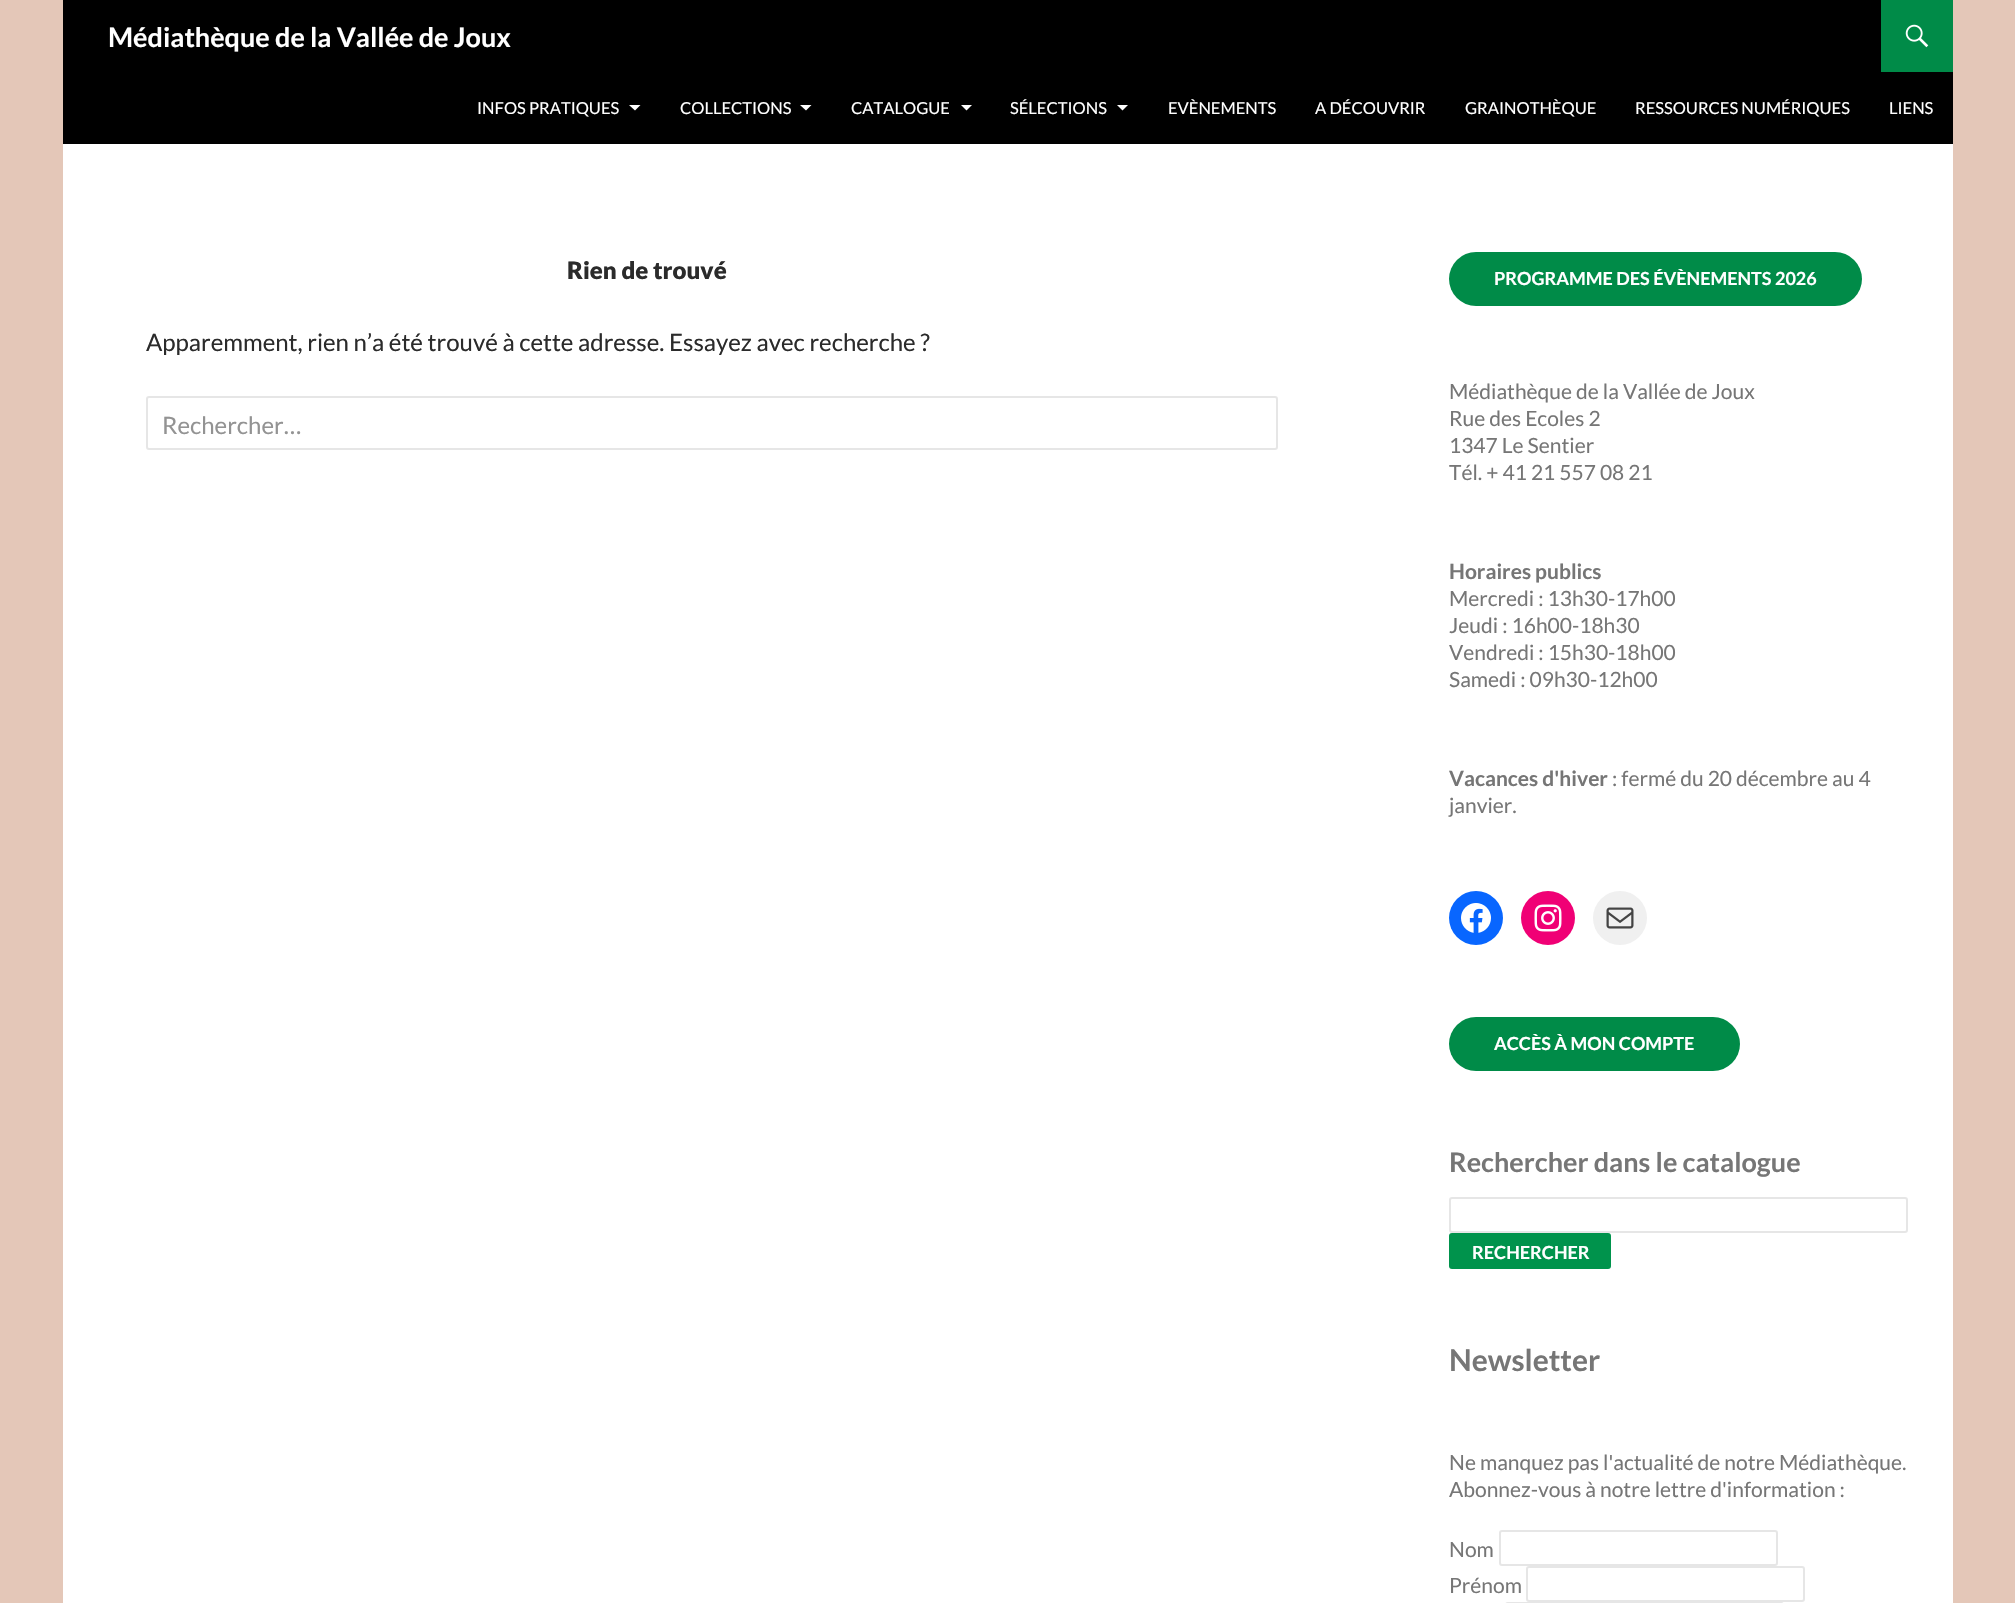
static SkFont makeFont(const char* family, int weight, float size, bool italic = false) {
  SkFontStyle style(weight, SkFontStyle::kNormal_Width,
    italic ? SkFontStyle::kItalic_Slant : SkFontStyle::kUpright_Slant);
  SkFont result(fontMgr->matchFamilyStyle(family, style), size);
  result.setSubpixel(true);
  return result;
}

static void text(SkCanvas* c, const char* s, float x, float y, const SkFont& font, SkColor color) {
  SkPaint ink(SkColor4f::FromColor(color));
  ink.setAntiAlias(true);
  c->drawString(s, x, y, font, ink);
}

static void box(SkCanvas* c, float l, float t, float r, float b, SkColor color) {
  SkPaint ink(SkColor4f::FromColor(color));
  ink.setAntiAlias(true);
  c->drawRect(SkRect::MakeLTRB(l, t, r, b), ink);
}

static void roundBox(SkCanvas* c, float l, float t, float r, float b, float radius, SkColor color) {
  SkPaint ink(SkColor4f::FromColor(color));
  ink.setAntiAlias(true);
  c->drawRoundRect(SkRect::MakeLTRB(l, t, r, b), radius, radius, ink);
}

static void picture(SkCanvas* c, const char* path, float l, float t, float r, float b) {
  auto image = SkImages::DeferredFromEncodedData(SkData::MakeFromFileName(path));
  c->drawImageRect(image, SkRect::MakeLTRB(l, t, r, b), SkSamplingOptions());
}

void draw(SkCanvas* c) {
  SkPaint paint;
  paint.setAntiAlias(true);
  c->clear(0xffe4c7b8);
  box(c, 63, 144, 1953, 1603, 0xffffffff);
  box(c, 63, 0, 1953, 144, 0xff000000);
  SkFont face1 = makeFont("Lato", 700, 27);
  text(c, "Médiathèque de la Vallée de Joux", 108, 47, face1, 0xffffffff);
  box(c, 1881, 0, 1953, 72, 0xff008b48);
  picture(c, "img_01.png", 1905, 24, 1929, 48);
  SkFont face2 = makeFont("Lato", 400, 16.5f);
  text(c, "INFOS PRATIQUES", 477, 114, face2, 0xffffffff);
  paint.setColor(0xffffffff);
  c->drawPath(SkPathBuilder().moveTo(629, 105).lineTo(635, 110.5f).lineTo(640.5f, 105).close().detach(), paint);
  text(c, "COLLECTIONS", 680, 114, face2, 0xffffffff);
  c->drawPath(SkPathBuilder().moveTo(800, 105).lineTo(806, 110.5f).lineTo(811.5f, 105).close().detach(), paint);
  text(c, "CATALOGUE", 851, 114, face2, 0xffffffff);
  c->drawPath(SkPathBuilder().moveTo(961, 105).lineTo(966.5f, 110.5f).lineTo(972, 105).close().detach(), paint);
  text(c, "SÉLECTIONS", 1010, 114, face2, 0xffffffff);
  c->drawPath(SkPathBuilder().moveTo(1117, 105).lineTo(1122.5f, 110.5f).lineTo(1128, 105).close().detach(), paint);
  text(c, "EVÈNEMENTS", 1168, 114, face2, 0xffffffff);
  text(c, "A DÉCOUVRIR", 1315, 114, face2, 0xffffffff);
  text(c, "GRAINOTHÈQUE", 1465, 114, face2, 0xffffffff);
  text(c, "RESSOURCES NUMÉRIQUES", 1635, 114, face2, 0xffffffff);
  text(c, "LIENS", 1889, 114, face2, 0xffffffff);
  SkFont face3 = makeFont("Lato", 900, 24);
  text(c, "Rien de trouvé", 567, 279, face3, 0xff2b2b2b);
  SkFont face4 = makeFont("Lato", 400, 24);
  text(c, "Apparemment, rien n’a été trouvé à cette adresse. Essayez avec recherche ?", 146, 351, face4, 0xff2b2b2b);
  paint.setStyle(SkPaint::kStroke_Style);
  paint.setStrokeWidth(2);
  paint.setColor(0xffe6e6e6);
  c->drawRoundRect(SkRect::MakeLTRB(147, 397, 1277, 449), 2, 2, paint);
  text(c, "Rechercher…", 162, 434, face4, 0xff939393);
  roundBox(c, 1449, 252, 1862, 306, 27, 0xff008b48);
  SkFont face5 = makeFont("Lato", 700, 18);
  text(c, "PROGRAMME DES ÉVÈNEMENTS 2026", 1494, 285, face5, 0xffffffff);
  SkFont face6 = makeFont("Lato", 400, 21);
  text(c, "Médiathèque de la Vallée de Joux", 1449, 399, face6, 0xff767676);
  text(c, "Rue des Ecoles 2", 1449, 426, face6, 0xff767676);
  text(c, "1347 Le Sentier", 1449, 453, face6, 0xff767676);
  text(c, "Tél. + 41 21 557 08 21", 1449, 480, face6, 0xff767676);
  SkFont face7 = makeFont("Lato", 700, 21);
  text(c, "Horaires publics", 1449, 579, face7, 0xff767676);
  text(c, "Mercredi : 13h30-17h00", 1449, 606, face6, 0xff767676);
  text(c, "Jeudi : 16h00-18h30", 1449, 633, face6, 0xff767676);
  text(c, "Vendredi : 15h30-18h00", 1449, 660, face6, 0xff767676);
  text(c, "Samedi : 09h30-12h00", 1449, 687, face6, 0xff767676);
  text(c, "Vacances d'hiver", 1449, 786, face7, 0xff767676);
  text(c, ": fermé du 20 décembre au 4", 1612, 786, face6, 0xff767676);
  text(c, "janvier.", 1449, 813, face6, 0xff767676);
  paint.setStyle(SkPaint::kFill_Style);
  paint.setColor(0xff0866ff);
  c->drawCircle(1476, 918, 27, paint);
  picture(c, "img_02.png", 1461, 903, 1491, 933);
  paint.setColor(0xfff00075);
  c->drawCircle(1548, 918, 27, paint);
  picture(c, "img_03.png", 1534, 904, 1562, 932);
  paint.setColor(0xfff0f0f0);
  c->drawCircle(1620, 918, 27, paint);
  picture(c, "img_04.png", 1606, 907, 1634, 929);
  roundBox(c, 1449, 1017, 1740, 1071, 27, 0xff008b48);
  text(c, "ACCÈS À MON COMPTE", 1494, 1050, face5, 0xffffffff);
  text(c, "Rechercher dans le catalogue", 1449, 1172, face1, 0xff767676);
  paint.setStyle(SkPaint::kStroke_Style);
  paint.setColor(0xffe6e6e6);
  c->drawRoundRect(SkRect::MakeLTRB(1450, 1198, 1907, 1232), 2, 2, paint);
  roundBox(c, 1449, 1233, 1611, 1269, 3, 0xff00934c);
  text(c, "RECHERCHER", 1472, 1259, face5, 0xffffffff);
  SkFont face8 = makeFont("Lato", 700, 30);
  text(c, "Newsletter", 1449, 1371, face8, 0xff767676);
  text(c, "Ne manquez pas l'actualité de notre Médiathèque.", 1449, 1470, face6, 0xff767676);
  text(c, "Abonnez-vous à notre lettre d'information :", 1449, 1497, face6, 0xff767676);
  text(c, "Nom", 1449, 1557, face6, 0xff767676);
  c->drawRoundRect(SkRect::MakeLTRB(1500, 1531, 1777, 1565), 2, 2, paint);
  text(c, "Prénom", 1449, 1593, face6, 0xff767676);
  c->drawRoundRect(SkRect::MakeLTRB(1527, 1567, 1804, 1601), 2, 2, paint);
  c->drawRoundRect(SkRect::MakeLTRB(1506, 1603, 1783, 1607), 2, 2, paint);
}
